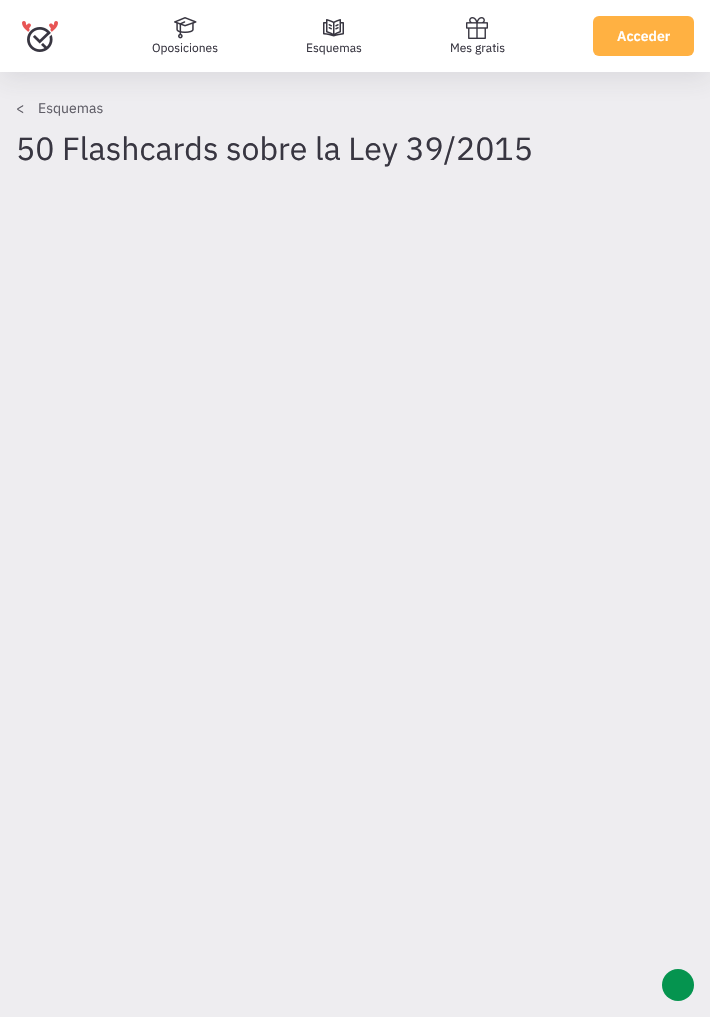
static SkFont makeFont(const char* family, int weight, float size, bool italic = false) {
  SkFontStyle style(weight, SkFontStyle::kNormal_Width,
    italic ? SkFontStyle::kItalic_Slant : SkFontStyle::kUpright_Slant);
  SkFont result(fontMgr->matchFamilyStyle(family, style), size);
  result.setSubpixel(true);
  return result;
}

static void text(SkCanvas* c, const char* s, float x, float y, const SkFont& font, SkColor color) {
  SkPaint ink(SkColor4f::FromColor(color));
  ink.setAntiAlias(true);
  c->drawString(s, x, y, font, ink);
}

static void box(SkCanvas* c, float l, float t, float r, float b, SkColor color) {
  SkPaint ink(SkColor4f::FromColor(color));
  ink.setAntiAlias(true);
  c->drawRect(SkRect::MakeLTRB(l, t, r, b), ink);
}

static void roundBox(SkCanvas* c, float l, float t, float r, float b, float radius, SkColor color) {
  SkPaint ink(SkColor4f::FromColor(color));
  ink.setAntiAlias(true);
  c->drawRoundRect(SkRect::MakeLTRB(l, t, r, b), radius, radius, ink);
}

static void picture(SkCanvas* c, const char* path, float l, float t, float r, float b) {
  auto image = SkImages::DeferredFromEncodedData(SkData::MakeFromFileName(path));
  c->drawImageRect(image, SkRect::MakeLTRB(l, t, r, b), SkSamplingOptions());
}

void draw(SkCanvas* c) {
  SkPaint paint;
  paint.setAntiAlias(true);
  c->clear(0xffeeedf0);
  paint.setColor(0x1a383641);
  paint.setMaskFilter(SkMaskFilter::MakeBlur(kNormal_SkBlurStyle, 12));
  c->drawRect(SkRect::MakeLTRB(0, 8, 710, 80), paint);
  paint.setMaskFilter(nullptr);
  box(c, 0, 0, 710, 72, 0xffffffff);
  picture(c, "img_01.png", 22, 21, 58, 52);
  roundBox(c, 593, 16, 694, 56, 6, 0xffffb142);
  SkFont face1 = makeFont("IBM Plex Sans", 600, 14);
  text(c, "Acceder", 617, 41, face1, 0xffffffff);
  picture(c, "img_02.png", 174, 17, 197, 39);
  SkFont face2 = makeFont("IBM Plex Sans", 400, 12);
  text(c, "Oposiciones", 152, 52, face2, 0xff383641);
  picture(c, "img_03.png", 323, 19, 344, 37);
  text(c, "Esquemas", 306, 52, face2, 0xff383641);
  picture(c, "img_04.png", 466, 17, 488, 39);
  text(c, "Mes gratis", 450, 52, face2, 0xff383641);
  SkFont face3 = makeFont("IBM Plex Sans", 400, 14);
  text(c, "<", 16, 113, face3, 0xff605e67);
  text(c, "Esquemas", 38, 113, face3, 0xff605e67);
  SkFont face4 = makeFont("IBM Plex Sans", 400, 32);
  text(c, "50 Flashcards sobre la Ley 39/2015", 16, 160, face4, 0xff383641);
  paint.setColor(0xff05944f);
  c->drawCircle(678, 985, 16, paint);
}
